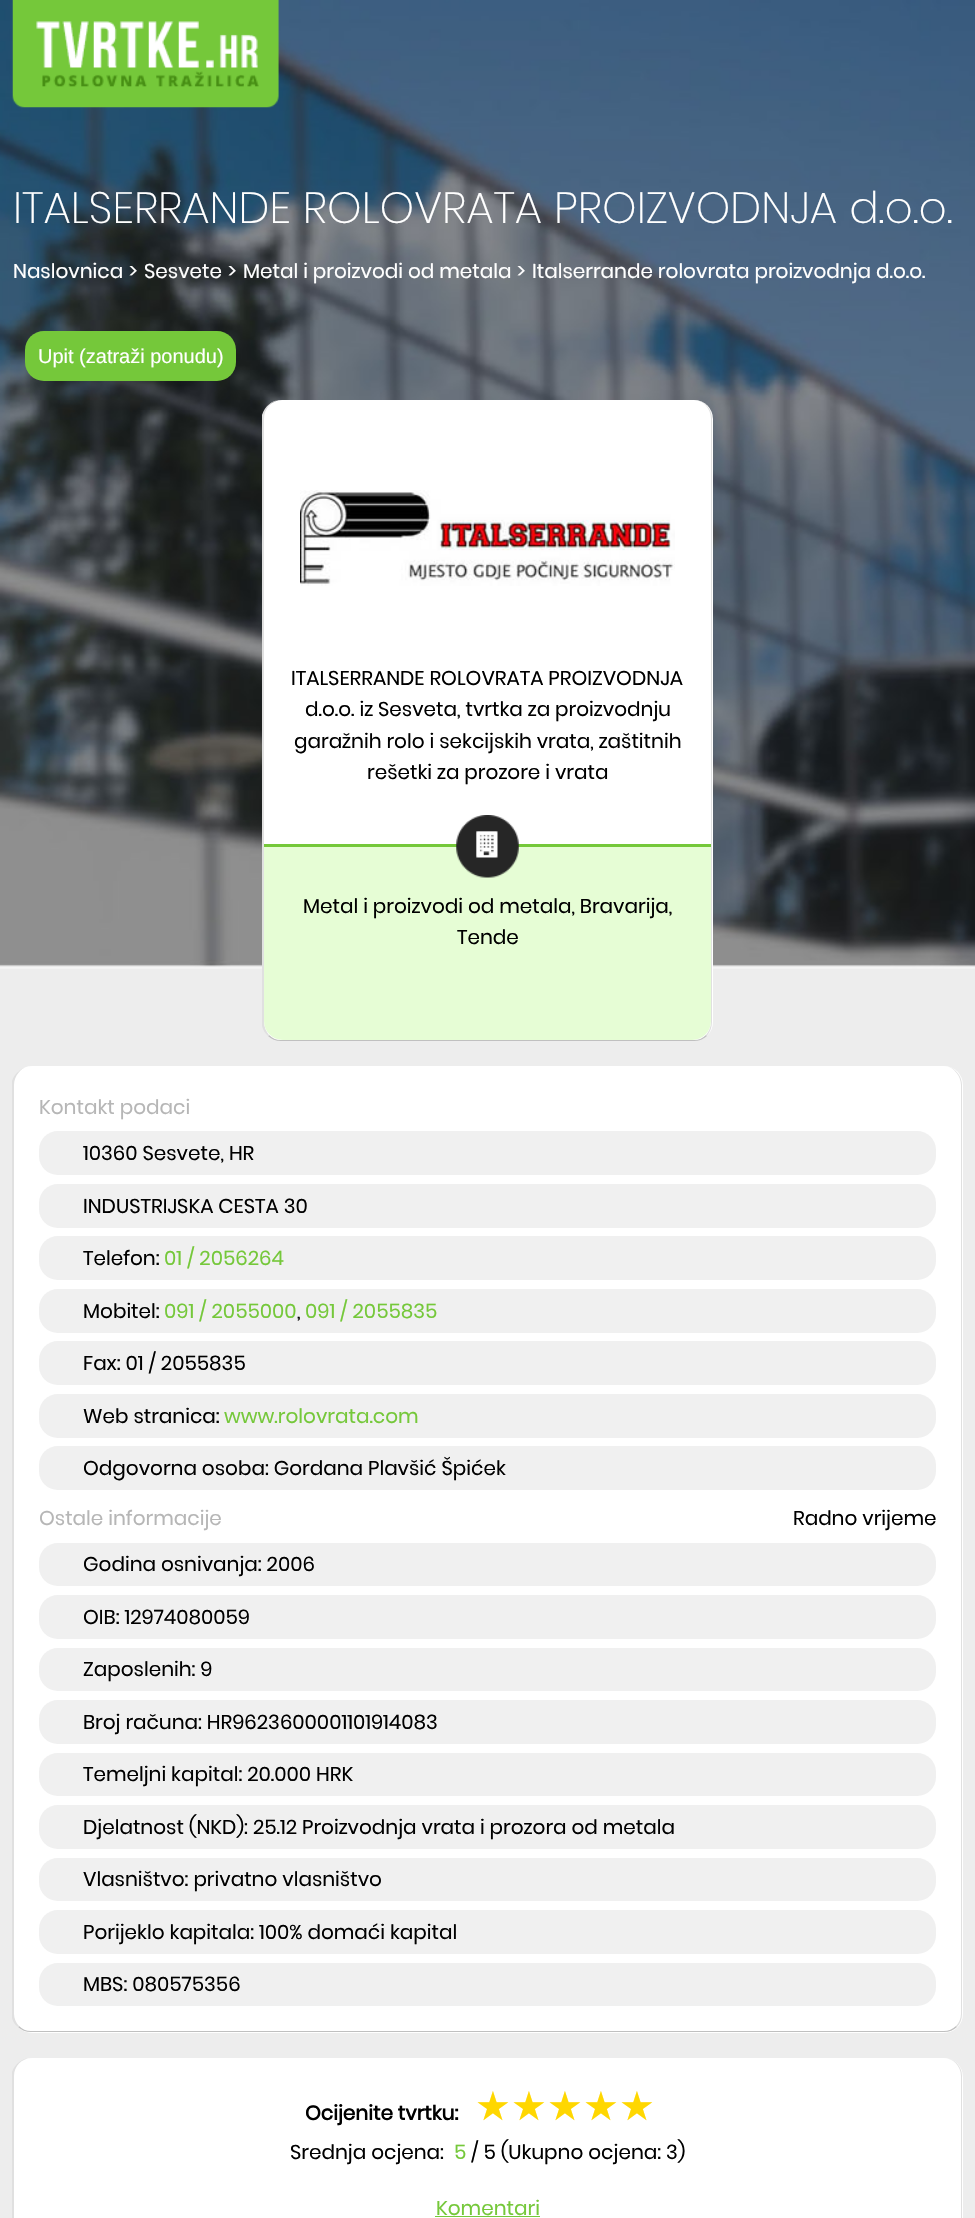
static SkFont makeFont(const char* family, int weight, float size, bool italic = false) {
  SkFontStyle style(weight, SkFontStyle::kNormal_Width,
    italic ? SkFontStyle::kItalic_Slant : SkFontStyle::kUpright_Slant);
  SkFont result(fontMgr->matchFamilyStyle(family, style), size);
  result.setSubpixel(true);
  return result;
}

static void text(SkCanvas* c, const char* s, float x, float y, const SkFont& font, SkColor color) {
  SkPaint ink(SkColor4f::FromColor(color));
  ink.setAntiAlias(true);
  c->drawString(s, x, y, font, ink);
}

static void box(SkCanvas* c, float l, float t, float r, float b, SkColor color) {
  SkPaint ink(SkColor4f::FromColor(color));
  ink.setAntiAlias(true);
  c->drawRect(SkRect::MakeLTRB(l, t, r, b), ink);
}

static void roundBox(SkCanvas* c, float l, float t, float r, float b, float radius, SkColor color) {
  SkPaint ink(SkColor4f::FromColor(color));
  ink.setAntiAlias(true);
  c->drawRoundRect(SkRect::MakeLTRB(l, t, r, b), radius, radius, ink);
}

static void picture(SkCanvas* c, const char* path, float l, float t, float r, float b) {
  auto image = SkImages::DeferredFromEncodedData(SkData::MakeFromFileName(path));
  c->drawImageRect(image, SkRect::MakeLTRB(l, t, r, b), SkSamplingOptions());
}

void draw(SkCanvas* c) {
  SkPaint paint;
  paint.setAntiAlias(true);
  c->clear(0xffededed);
  picture(c, "img_02.png", 0, 0, 975, 969);
  picture(c, "img_01.png", 12, 0, 279, 108);
  SkFont face1 = makeFont("Poppins", 200, 43.75f);
  text(c, "ITALSERRANDE ROLOVRATA PROIZVODNJA d.o.o.", 13, 223, face1, 0xffffffff);
  SkFont face2 = makeFont("Poppins", 400, 20);
  text(c, "Naslovnica", 13, 278, face2, 0xffffffff);
  text(c, ">", 129, 278, face2, 0xffffffff);
  text(c, "Sesvete", 144, 278, face2, 0xffffffff);
  text(c, ">", 228, 278, face2, 0xffffffff);
  text(c, "Metal i proizvodi od metala", 243, 278, face2, 0xffffffff);
  text(c, ">", 517, 278, face2, 0xffffffff);
  text(c, "Italserrande rolovrata proizvodnja d.o.o.", 532, 278, face2, 0xffffffff);
  roundBox(c, 25, 331, 236, 381, 19, 0xff75c83a);
  SkFont face3 = makeFont("Liberation Sans", 400, 20);
  text(c, "Upit (zatraži ponudu)", 38, 363, face3, 0xffffffff);
  roundBox(c, 263, 400, 713, 1041, 19, 0xffffffff);
  paint.setColor(0xffe0e0e0);
  c->drawPath(SkPathBuilder().moveTo(712, 419).cubicTo(712, 408, 704, 400, 694, 400).cubicTo(703, 400, 711, 408, 711, 419).lineTo(711, 1022).cubicTo(711, 1027, 709, 1031, 706, 1035).lineTo(707, 1036).cubicTo(710, 1032, 712, 1027, 712, 1022).close().detach(), paint);
  paint.setColor(0xffc0c0c0);
  c->drawPath(SkPathBuilder().moveTo(707, 1036).cubicTo(704, 1039, 699, 1041, 694, 1041).lineTo(281, 1041).cubicTo(276, 1041, 271, 1039, 268, 1036).lineTo(269, 1035).cubicTo(272, 1038, 276, 1040, 281, 1040).lineTo(694, 1040).cubicTo(699, 1040, 703, 1038, 706, 1035).close().detach(), paint);
  paint.setColor(0xffe0e0e0);
  c->drawPath(SkPathBuilder().moveTo(281, 400).cubicTo(272, 400, 264, 408, 264, 419).lineTo(264, 1022).cubicTo(264, 1027, 266, 1031, 269, 1035).lineTo(268, 1036).cubicTo(265, 1033, 263, 1030, 262, 1026).lineTo(262, 415).cubicTo(265, 406, 272, 400, 281, 400).close().detach(), paint);
  picture(c, "img_03.png", 300, 490, 675, 586);
  text(c, "ITALSERRANDE ROLOVRATA PROIZVODNJA", 291, 685, face2, 0xff000000);
  text(c, "d.o.o. iz Sesveta, tvrtka za proizvodnju", 305, 716, face2, 0xff000000);
  text(c, "garažnih rolo i sekcijskih vrata, zaštitnih", 294, 748, face2, 0xff000000);
  text(c, "rešetki za prozore i vrata", 367, 779, face2, 0xff000000);
  paint.setColor(0xffe6fdd5);
  c->drawPath(SkPathBuilder().moveTo(264, 844).lineTo(711, 844).lineTo(711, 1021).cubicTo(711, 1031.5f, 702.5f, 1040, 692, 1040).lineTo(283, 1040).cubicTo(272.5f, 1040, 264, 1031.5f, 264, 1021).close().detach(), paint);
  box(c, 264, 844, 711, 847, 0xff75c83a);
  picture(c, "img_04.png", 456, 815, 519, 878);
  text(c, "Metal i proizvodi od metala, Bravarija,", 303, 913, face2, 0xff000000);
  text(c, "Tende", 457, 944, face2, 0xff000000);
  roundBox(c, 13, 1066, 963, 2033, 19, 0xffffffff);
  paint.setColor(0xffe0e0e0);
  c->drawPath(SkPathBuilder().moveTo(956, 2026).cubicTo(959, 2023, 961, 2018, 961, 2014).lineTo(961, 1085).cubicTo(961, 1076, 954, 1068, 947, 1066).cubicTo(955, 1068, 962, 1076, 962, 1085).lineTo(962, 2014).cubicTo(962, 2019, 960, 2024, 957, 2027).close().detach(), paint);
  paint.setColor(0xffc0c0c0);
  c->drawPath(SkPathBuilder().moveTo(957, 2027).cubicTo(954, 2030, 949, 2032, 944, 2032).lineTo(31, 2032).cubicTo(26, 2032, 21, 2030, 18, 2027).lineTo(19, 2026).cubicTo(22, 2029, 26, 2031, 31, 2031).lineTo(944, 2031).cubicTo(948, 2031, 953, 2029, 956, 2026).close().detach(), paint);
  paint.setColor(0xffe0e0e0);
  c->drawPath(SkPathBuilder().moveTo(28, 1066).cubicTo(21, 1068, 14, 1076, 14, 1085).lineTo(14, 2014).cubicTo(14, 2018, 16, 2023, 19, 2026).lineTo(18, 2027).cubicTo(15, 2025, 13, 2022, 12, 2018).lineTo(12, 1081).cubicTo(14, 1074, 21, 1068, 28, 1066).close().detach(), paint);
  text(c, "Kontakt podaci", 39, 1114, face2, 0xffb6b6b6);
  roundBox(c, 39, 1131, 936, 1175, 19, 0xfff0f0f0);
  text(c, "10360 Sesvete, HR", 83, 1160, face2, 0xff000000);
  roundBox(c, 39, 1184, 936, 1228, 19, 0xfff0f0f0);
  text(c, "INDUSTRIJSKA CESTA 30", 83, 1213, face2, 0xff000000);
  roundBox(c, 39, 1236, 936, 1280, 19, 0xfff0f0f0);
  text(c, "Telefon:", 83, 1265, face2, 0xff000000);
  text(c, "01 / 2056264", 164, 1265, face2, 0xff75c83a);
  roundBox(c, 39, 1289, 936, 1333, 19, 0xfff0f0f0);
  text(c, "Mobitel:", 83, 1318, face2, 0xff000000);
  text(c, "091 / 2055000", 164, 1318, face2, 0xff75c83a);
  text(c, ",", 297, 1318, face2, 0xff000000);
  text(c, "091 / 2055835", 305, 1318, face2, 0xff75c83a);
  roundBox(c, 39, 1341, 936, 1385, 19, 0xfff0f0f0);
  text(c, "Fax: 01 / 2055835", 83, 1370, face2, 0xff000000);
  roundBox(c, 39, 1394, 936, 1438, 19, 0xfff0f0f0);
  text(c, "Web stranica:", 83, 1423, face2, 0xff000000);
  text(c, "www.rolovrata.com", 224, 1423, face2, 0xff75c83a);
  roundBox(c, 39, 1446, 936, 1490, 19, 0xfff0f0f0);
  text(c, "Odgovorna osoba: Gordana Plavšić Špićek", 83, 1475, face2, 0xff000000);
  text(c, "Ostale informacije", 39, 1525, face2, 0xffb6b6b6);
  text(c, "Radno vrijeme", 793, 1525, face2, 0xff000000);
  roundBox(c, 39, 1543, 936, 1586, 19, 0xfff0f0f0);
  text(c, "Godina osnivanja: 2006", 83, 1571, face2, 0xff000000);
  roundBox(c, 39, 1595, 936, 1639, 19, 0xfff0f0f0);
  text(c, "OIB: 12974080059", 83, 1624, face2, 0xff000000);
  roundBox(c, 39, 1648, 936, 1691, 19, 0xfff0f0f0);
  text(c, "Zaposlenih: 9", 83, 1676, face2, 0xff000000);
  roundBox(c, 39, 1700, 936, 1744, 19, 0xfff0f0f0);
  text(c, "Broj računa: HR9623600001101914083", 83, 1729, face2, 0xff000000);
  roundBox(c, 39, 1753, 936, 1796, 19, 0xfff0f0f0);
  text(c, "Temeljni kapital: 20.000 HRK", 83, 1781, face2, 0xff000000);
  roundBox(c, 39, 1805, 936, 1849, 19, 0xfff0f0f0);
  text(c, "Djelatnost (NKD): 25.12 Proizvodnja vrata i prozora od metala", 83, 1834, face2, 0xff000000);
  roundBox(c, 39, 1858, 936, 1901, 19, 0xfff0f0f0);
  text(c, "Vlasništvo: privatno vlasništvo", 83, 1886, face2, 0xff000000);
  roundBox(c, 39, 1910, 936, 1954, 19, 0xfff0f0f0);
  text(c, "Porijeklo kapitala: 100% domaći kapital", 83, 1939, face2, 0xff000000);
  roundBox(c, 39, 1963, 936, 2006, 19, 0xfff0f0f0);
  text(c, "MBS: 080575356", 83, 1991, face2, 0xff000000);
  roundBox(c, 13, 2058, 963, 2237, 19, 0xffffffff);
  c->drawPath(SkPathBuilder().moveTo(957, 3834).cubicTo(960, 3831, 962, 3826, 962, 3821).lineTo(962, 2076).cubicTo(962, 2066, 954, 2058, 944, 2058).cubicTo(953, 2058, 961, 2066, 961, 2076).lineTo(961, 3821).cubicTo(961, 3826, 959, 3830, 956, 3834).close().detach(), paint);
  c->drawPath(SkPathBuilder().moveTo(31, 2058).cubicTo(22, 2058, 14, 2066, 14, 2076).lineTo(14, 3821).cubicTo(14, 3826, 16, 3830, 19, 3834).lineTo(18, 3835).cubicTo(15, 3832, 13, 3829, 12, 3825).lineTo(12, 2072).cubicTo(15, 2064, 22, 2058, 31, 2058).close().detach(), paint);
  SkFont face4 = makeFont("Poppins", 700, 20);
  text(c, "Ocijenite tvrtku:", 305, 2120, face4, 0xff000000);
  SkFont face5 = makeFont("DejaVu Sans", 400, 40);
  text(c, "★", 475, 2120, face5, 0xffffd700);
  text(c, "★", 511, 2120, face5, 0xffffd700);
  text(c, "★", 547, 2120, face5, 0xffffd700);
  text(c, "★", 583, 2120, face5, 0xffffd700);
  text(c, "★", 619, 2120, face5, 0xffffd700);
  text(c, "Srednja ocjena:", 290, 2159, face2, 0xff000000);
  text(c, "5", 454, 2159, face2, 0xff75c83a);
  text(c, "/ 5 (Ukupno ocjena: 3)", 471, 2159, face2, 0xff000000);
  text(c, "Komentari", 436, 2215, face2, 0xff75c83a);
  box(c, 435, 2216, 540, 2217, 0xff75c83a);
}
